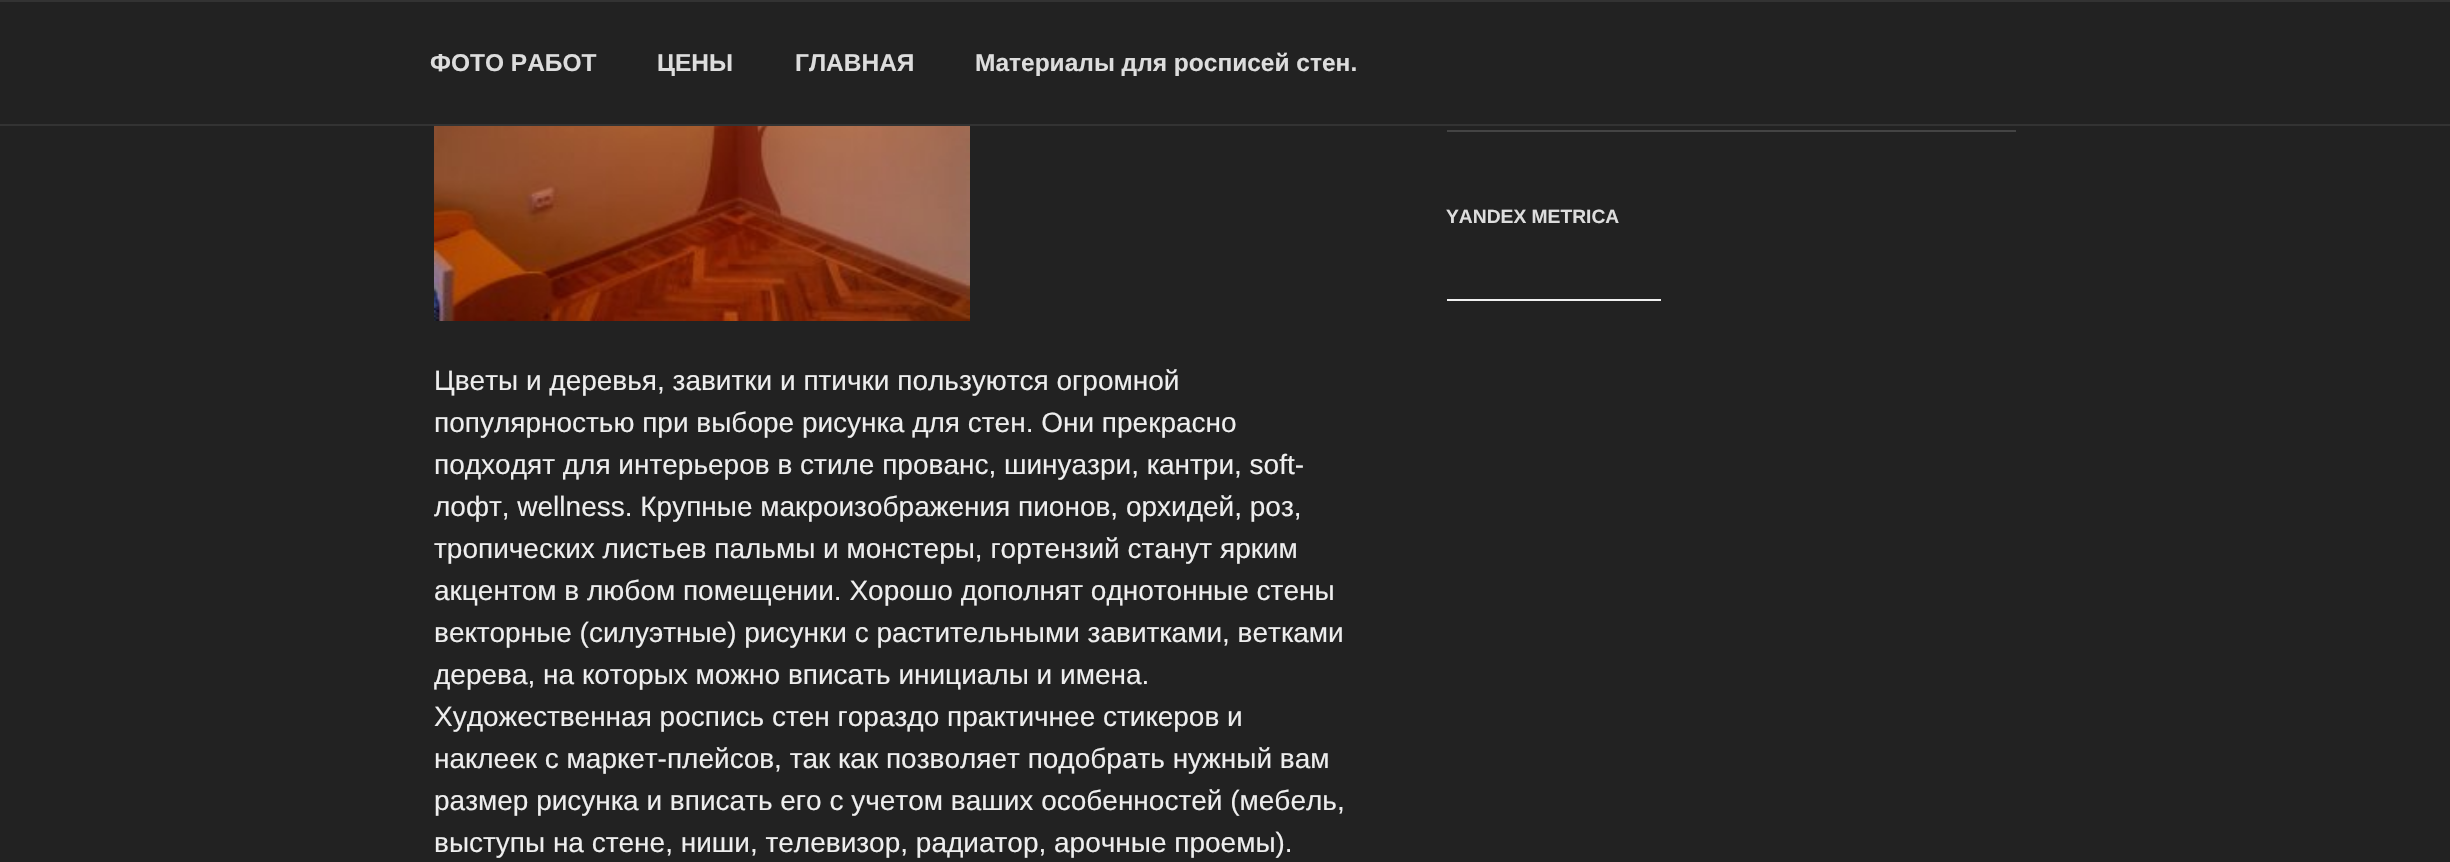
static SkFont makeFont(const char* family, int weight, float size, bool italic = false) {
  SkFontStyle style(weight, SkFontStyle::kNormal_Width,
    italic ? SkFontStyle::kItalic_Slant : SkFontStyle::kUpright_Slant);
  SkFont result(fontMgr->matchFamilyStyle(family, style), size);
  result.setSubpixel(true);
  return result;
}

static void text(SkCanvas* c, const char* s, float x, float y, const SkFont& font, SkColor color) {
  SkPaint ink(SkColor4f::FromColor(color));
  ink.setAntiAlias(true);
  c->drawString(s, x, y, font, ink);
}

static void box(SkCanvas* c, float l, float t, float r, float b, SkColor color) {
  SkPaint ink(SkColor4f::FromColor(color));
  ink.setAntiAlias(true);
  c->drawRect(SkRect::MakeLTRB(l, t, r, b), ink);
}

static void picture(SkCanvas* c, const char* path, float l, float t, float r, float b) {
  auto image = SkImages::DeferredFromEncodedData(SkData::MakeFromFileName(path));
  c->drawImageRect(image, SkRect::MakeLTRB(l, t, r, b), SkSamplingOptions());
}

void draw(SkCanvas* c) {
  SkPaint paint;
  paint.setAntiAlias(true);
  c->clear(0xff222222);
  box(c, 0, 0, 2450, 2, 0xff333333);
  box(c, 0, 124, 2450, 126, 0xff333333);
  SkFont face1 = makeFont("Liberation Sans", 700, 24.5f);
  text(c, "ФОТО РАБОТ", 430, 71, face1, 0xffdddddd);
  text(c, "ЦЕНЫ", 657, 71, face1, 0xffdddddd);
  text(c, "ГЛАВНАЯ", 795, 71, face1, 0xffdddddd);
  text(c, "Материалы для росписей стен.", 975, 71, face1, 0xffdddddd);
  box(c, 1447, 130, 2016, 132, 0xff444444);
  SkFont face2 = makeFont("Liberation Sans", 700, 19.25f);
  text(c, "YANDEX METRICA", 1446, 223, face2, 0xffdddddd);
  box(c, 1447, 299, 1661, 301, 0xfff0f0f0);
  picture(c, "img_01.png", 434, 126, 970, 321);
  SkFont face3 = makeFont("Liberation Sans", 400, 28);
  text(c, "Цветы и деревья, завитки и птички пользуются огромной", 434, 390, face3, 0xffeeeeee);
  text(c, "популярностью при выборе рисунка для стен. Они прекрасно", 434, 432, face3, 0xffeeeeee);
  text(c, "подходят для интерьеров в стиле прованс, шинуазри, кантри, soft-", 434, 474, face3, 0xffeeeeee);
  text(c, "лофт, wellness. Крупные макроизображения пионов, орхидей, роз,", 434, 516, face3, 0xffeeeeee);
  text(c, "тропических листьев пальмы и монстеры, гортензий станут ярким", 434, 558, face3, 0xffeeeeee);
  text(c, "акцентом в любом помещении. Хорошо дополнят однотонные стены", 434, 600, face3, 0xffeeeeee);
  text(c, "векторные (силуэтные) рисунки с растительными завитками, ветками", 434, 642, face3, 0xffeeeeee);
  text(c, "дерева, на которых можно вписать инициалы и имена.", 434, 684, face3, 0xffeeeeee);
  text(c, "Художественная роспись стен гораздо практичнее стикеров и", 434, 726, face3, 0xffeeeeee);
  text(c, "наклеек с маркет-плейсов, так как позволяет подобрать нужный вам", 434, 768, face3, 0xffeeeeee);
  text(c, "размер рисунка и вписать его с учетом ваших особенностей (мебель,", 434, 810, face3, 0xffeeeeee);
  text(c, "выступы на стене, ниши, телевизор, радиатор, арочные проемы).", 434, 852, face3, 0xffeeeeee);
}
